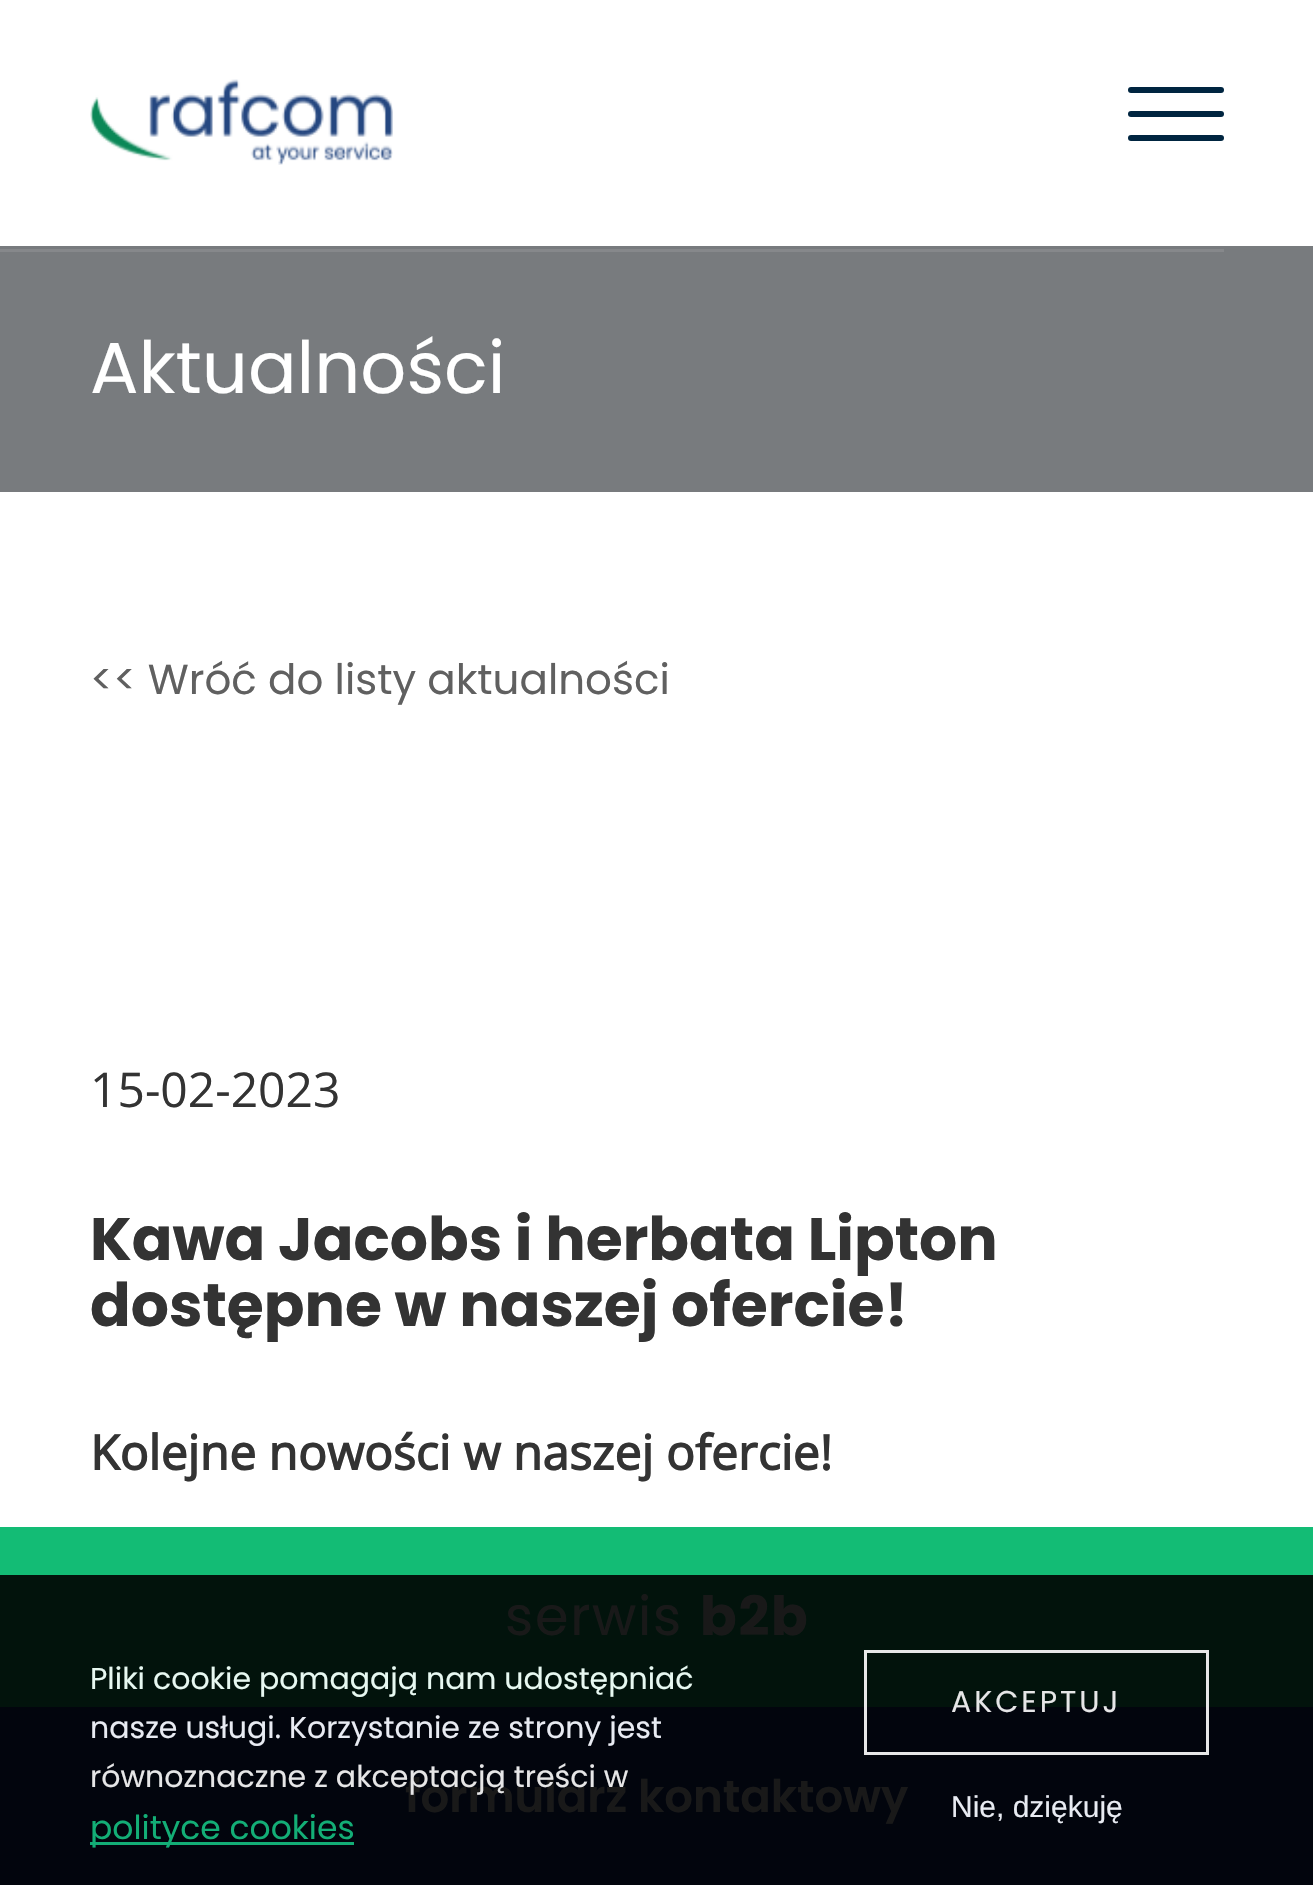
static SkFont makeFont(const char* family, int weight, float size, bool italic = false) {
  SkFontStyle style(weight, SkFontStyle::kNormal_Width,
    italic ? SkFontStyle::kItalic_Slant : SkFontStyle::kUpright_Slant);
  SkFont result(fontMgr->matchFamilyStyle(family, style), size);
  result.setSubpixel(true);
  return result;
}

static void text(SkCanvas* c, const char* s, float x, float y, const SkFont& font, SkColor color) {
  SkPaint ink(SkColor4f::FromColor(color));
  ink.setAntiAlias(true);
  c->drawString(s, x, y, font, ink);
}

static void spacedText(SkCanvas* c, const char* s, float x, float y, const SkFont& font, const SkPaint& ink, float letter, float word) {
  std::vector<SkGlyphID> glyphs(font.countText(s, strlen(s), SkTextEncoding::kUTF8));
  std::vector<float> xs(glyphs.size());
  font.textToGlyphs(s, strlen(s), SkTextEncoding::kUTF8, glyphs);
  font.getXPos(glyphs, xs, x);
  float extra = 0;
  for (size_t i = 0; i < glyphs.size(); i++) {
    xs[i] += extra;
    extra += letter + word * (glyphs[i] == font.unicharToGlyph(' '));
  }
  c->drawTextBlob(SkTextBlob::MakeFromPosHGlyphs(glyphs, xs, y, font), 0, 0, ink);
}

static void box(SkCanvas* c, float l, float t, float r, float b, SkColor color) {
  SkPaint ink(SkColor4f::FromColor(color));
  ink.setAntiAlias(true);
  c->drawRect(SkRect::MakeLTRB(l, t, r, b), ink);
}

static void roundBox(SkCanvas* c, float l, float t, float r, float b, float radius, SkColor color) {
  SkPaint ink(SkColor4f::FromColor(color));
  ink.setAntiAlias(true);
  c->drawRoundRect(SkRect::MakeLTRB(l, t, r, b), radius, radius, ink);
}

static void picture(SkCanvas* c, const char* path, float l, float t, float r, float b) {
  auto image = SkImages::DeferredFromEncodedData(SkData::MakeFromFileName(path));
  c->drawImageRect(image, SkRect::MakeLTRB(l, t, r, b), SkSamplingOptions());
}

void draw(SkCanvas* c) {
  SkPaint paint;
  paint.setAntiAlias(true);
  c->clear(0xffffffff);
  box(c, 0, 246, 1313, 492, 0xff787b7e);
  SkFont face1 = makeFont("Poppins", 400, 72);
  text(c, "Aktualności", 90, 393, face1, 0xffffffff);
  box(c, 0, 1707, 1313, 1885, 0xff02050d);
  SkFont face2 = makeFont("Poppins", 600, 45);
  text(c, "formularz kontaktowy", 405, 1812, face2, 0xff191919);
  SkFont face3 = makeFont("Poppins", 400, 42);
  text(c, "<< Wróć do listy aktualności", 90, 694, face3, 0xff606060);
  SkFont face4 = makeFont("Open Sans", 400, 48);
  text(c, "15-02-2023", 90, 1107, face4, 0xff333333);
  SkFont face5 = makeFont("Poppins", 700, 60);
  text(c, "Kawa Jacobs i herbata Lipton", 90, 1260, face5, 0xff333333);
  text(c, "dostępne w naszej ofercie!", 90, 1326, face5, 0xff333333);
  SkFont face6 = makeFont("Open Sans", 700, 48);
  text(c, "Kolejne nowości w naszej ofercie!", 90, 1470, face6, 0xff333333);
  picture(c, "img_01.png", 90, 79, 393, 165);
  roundBox(c, 1128, 111, 1224, 117, 3, 0xff002540);
  roundBox(c, 1128, 87, 1224, 93, 3, 0xff002540);
  roundBox(c, 1128, 135, 1224, 141, 3, 0xff002540);
  box(c, 0, 249, 1224, 252, 0xff86888b);
  box(c, 0, 1527, 1313, 1575, 0xff13bc75);
  box(c, 0, 1575, 1313, 1707, 0xff02130c);
  SkFont face7 = makeFont("Poppins", 400, 54);
  paint.setColor(0xff191919);
  spacedText(c, "serwis", 505, 1635, face7, paint, 1.75f, 0);
  SkFont face8 = makeFont("Poppins", 700, 54);
  spacedText(c, "b2b", 700, 1635, face8, paint, 1.75f, 0);
  SkFont face9 = makeFont("Poppins", 400, 30);
  text(c, "Pliki cookie pomagają nam udostępniać", 90, 1689, face9, 0xffe7f8f1);
  text(c, "nasze usługi. Korzystanie ze strony jest", 90, 1738, face9, 0xffe8ebf2);
  text(c, "równoznaczne z akceptacją treści w", 90, 1787, face9, 0xffe6e6e7);
  box(c, 90, 1842, 354, 1845, 0xff13ae76);
  SkFont face10 = makeFont("Poppins", 400, 33);
  text(c, "polityce cookies", 90, 1839, face10, 0xff13ae76);
  paint.setStyle(SkPaint::kStroke_Style);
  paint.setStrokeWidth(3);
  paint.setColor(0xe6ffffff);
  c->drawRect(SkRect::MakeLTRB(865.5f, 1651.5f, 1207.5f, 1753.5f), paint);
  paint.setStyle(SkPaint::kFill_Style);
  paint.setColor(0xffe6e6e7);
  spacedText(c, "AKCEPTUJ", 951, 1712, face9, paint, 3, 0);
  SkFont face11 = makeFont("Liberation Sans", 400, 30);
  text(c, "Nie, dziękuję", 951, 1817, face11, 0xffe8ebf2);
}
